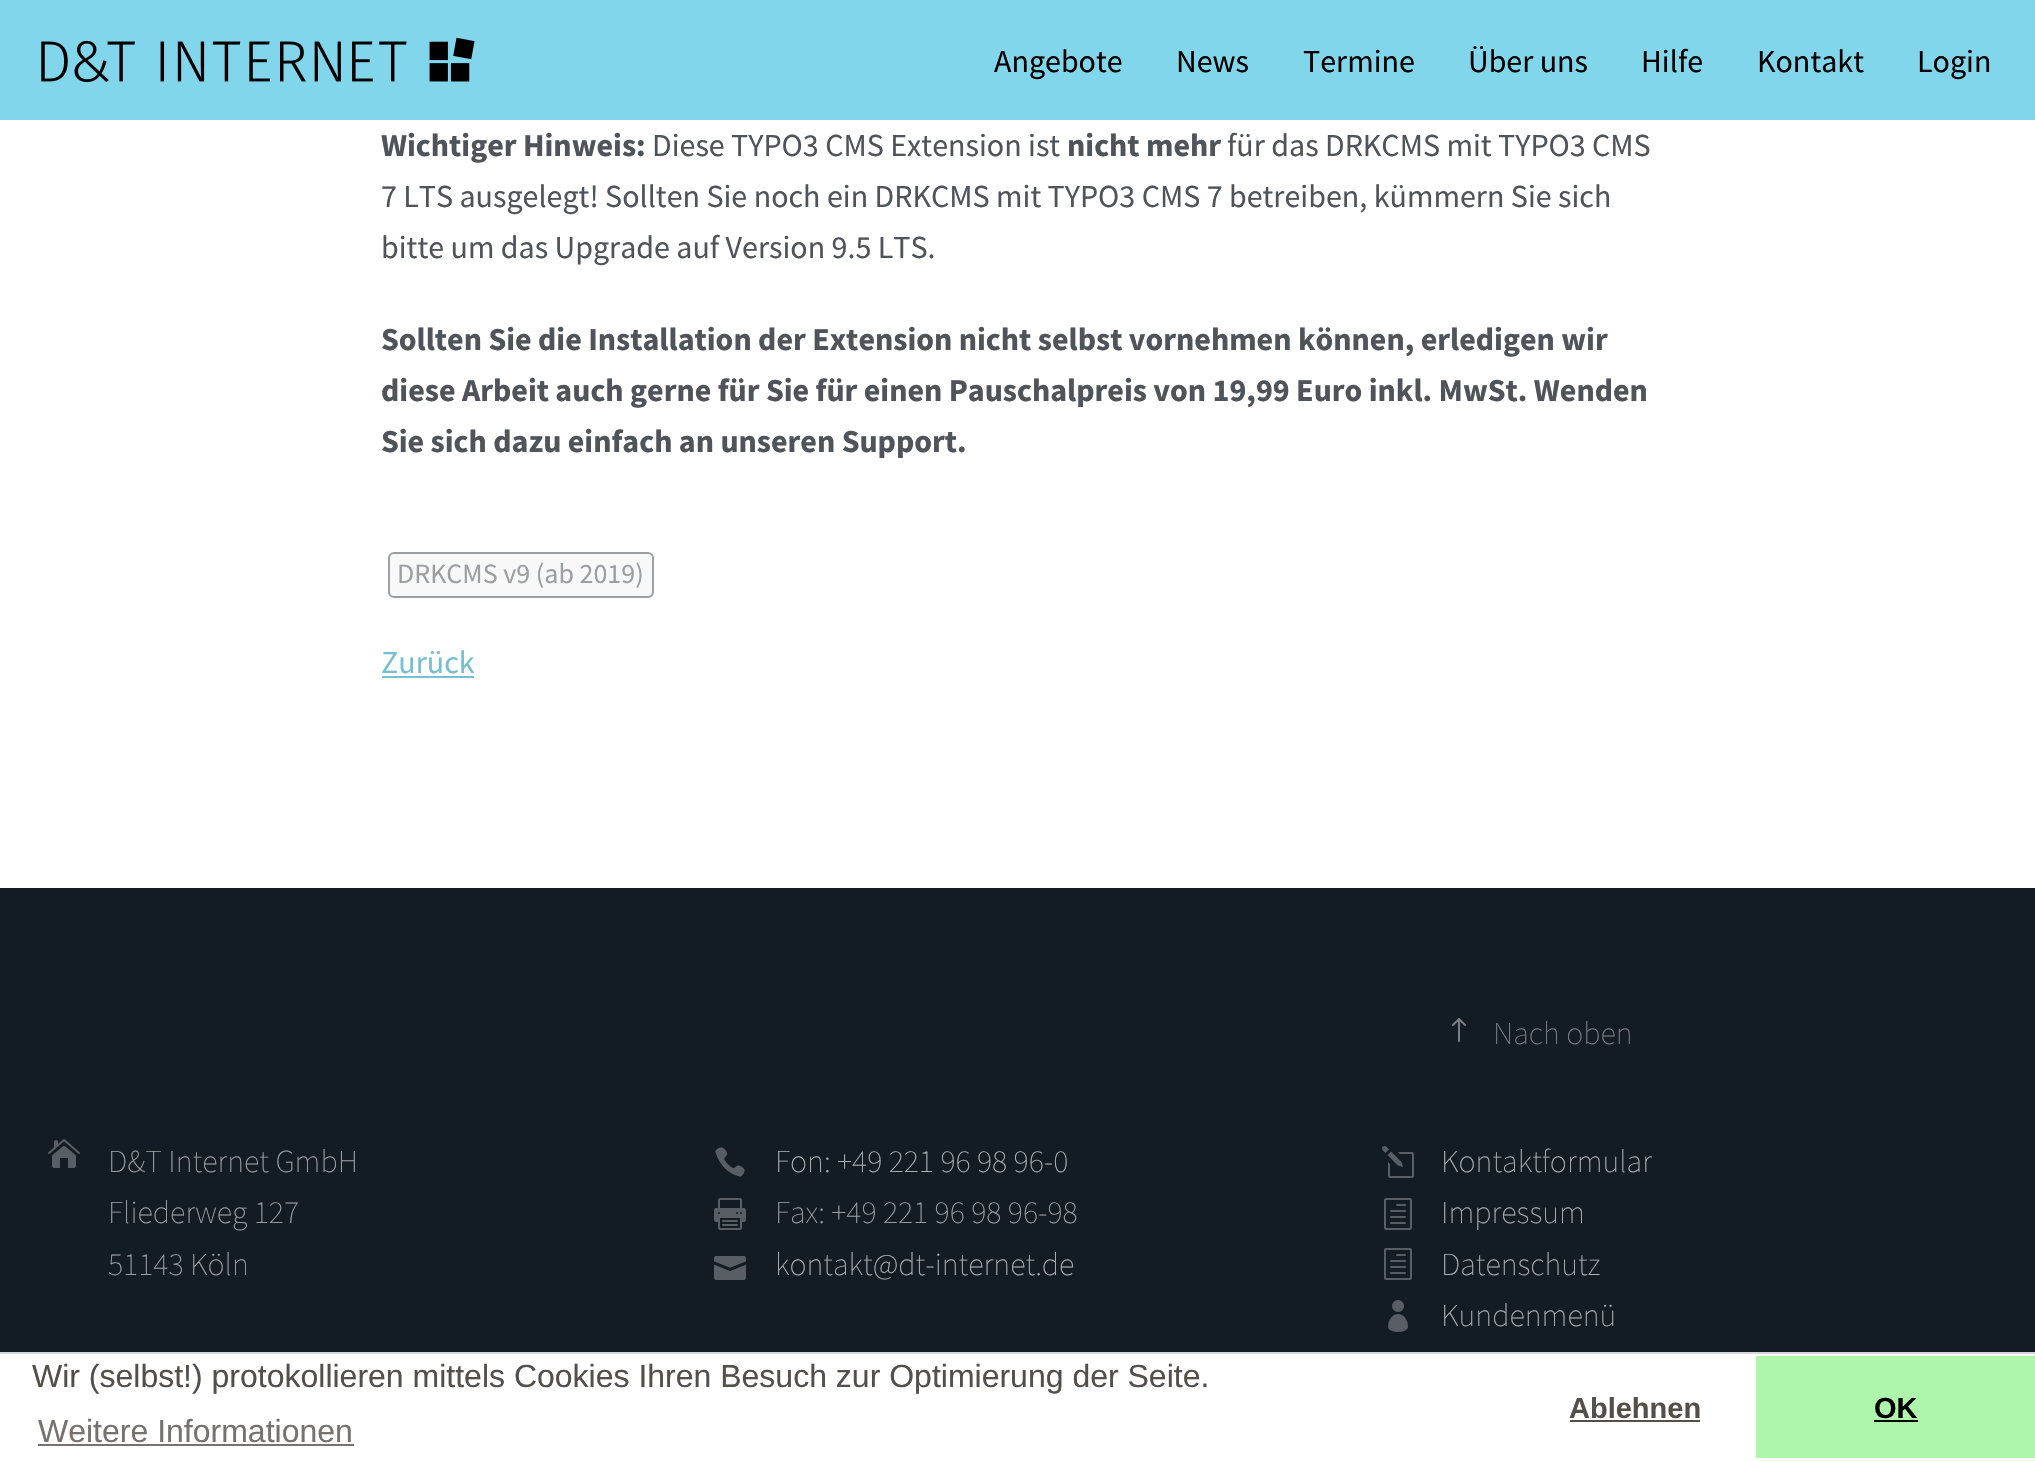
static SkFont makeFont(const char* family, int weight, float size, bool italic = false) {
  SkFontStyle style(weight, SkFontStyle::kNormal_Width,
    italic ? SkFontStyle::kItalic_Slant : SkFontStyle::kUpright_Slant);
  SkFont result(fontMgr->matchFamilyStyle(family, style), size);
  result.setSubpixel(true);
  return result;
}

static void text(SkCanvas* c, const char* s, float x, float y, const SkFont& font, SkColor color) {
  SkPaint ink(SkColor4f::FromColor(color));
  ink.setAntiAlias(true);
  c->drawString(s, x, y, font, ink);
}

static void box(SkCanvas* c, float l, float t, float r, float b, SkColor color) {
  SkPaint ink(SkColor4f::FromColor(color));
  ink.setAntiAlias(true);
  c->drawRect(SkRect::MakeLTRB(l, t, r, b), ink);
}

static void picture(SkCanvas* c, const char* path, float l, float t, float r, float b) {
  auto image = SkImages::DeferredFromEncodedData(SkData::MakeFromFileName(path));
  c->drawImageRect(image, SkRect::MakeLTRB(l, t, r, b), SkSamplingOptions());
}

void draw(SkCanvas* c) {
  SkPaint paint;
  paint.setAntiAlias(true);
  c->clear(0xffffffff);
  box(c, 0, 0, 2035, 120, 0xff81d6eb);
  picture(c, "img_01.png", 41, 37, 475, 83);
  SkFont face1 = makeFont("Source Sans Pro", 400, 32);
  text(c, "Angebote", 994, 72, face1, 0xff000000);
  text(c, "News", 1176, 72, face1, 0xff000000);
  text(c, "Termine", 1303, 72, face1, 0xff000000);
  text(c, "Über uns", 1468, 72, face1, 0xff000000);
  text(c, "Hilfe", 1641, 72, face1, 0xff000000);
  text(c, "Kontakt", 1757, 72, face1, 0xff000000);
  text(c, "Login", 1917, 72, face1, 0xff000000);
  SkFont face2 = makeFont("Source Sans Pro", 700, 32);
  text(c, "Wichtiger Hinweis:", 381, 156, face2, 0xff4e545a);
  text(c, "Diese TYPO3 CMS Extension ist", 652, 156, face1, 0xff4e545a);
  text(c, "nicht mehr", 1067, 156, face2, 0xff4e545a);
  text(c, "für das DRKCMS mit TYPO3 CMS", 1227, 156, face1, 0xff4e545a);
  text(c, "7 LTS ausgelegt! Sollten Sie noch ein DRKCMS mit TYPO3 CMS 7 betreiben, kümmern Sie sich", 381, 207, face1, 0xff4e545a);
  text(c, "bitte um das Upgrade auf Version 9.5 LTS.", 381, 258, face1, 0xff4e545a);
  text(c, "Sollten Sie die Installation der Extension nicht selbst vornehmen können, erledigen wir", 381, 350, face2, 0xff4e545a);
  text(c, "diese Arbeit auch gerne für Sie für einen Pauschalpreis von 19,99 Euro inkl. MwSt. Wenden", 381, 401, face2, 0xff4e545a);
  text(c, "Sie sich dazu einfach an unseren Support.", 381, 452, face2, 0xff4e545a);
  paint.setColor(0xfff8f8f8);
  c->drawRoundRect(SkRect::MakeLTRB(389, 553, 653, 597), 5, 5, paint);
  paint.setStyle(SkPaint::kStroke_Style);
  paint.setStrokeWidth(2);
  paint.setColor(0xff9b9fa2);
  c->drawRoundRect(SkRect::MakeLTRB(389, 553, 653, 597), 5, 5, paint);
  SkFont face3 = makeFont("Source Sans Pro", 400, 28);
  text(c, "DRKCMS v9 (ab 2019)", 397, 583, face3, 0xff9b9fa2);
  text(c, "Zurück", 381, 673, face1, 0xff74bfd3);
  box(c, 382, 676, 474, 678, 0xff74bfd3);
  box(c, 0, 888, 2035, 1352, 0xff131b23);
  picture(c, "img_02.png", 1452, 1018, 1466, 1042);
  SkFont face4 = makeFont("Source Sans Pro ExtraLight", 200, 32);
  text(c, "Nach oben", 1493, 1044, face4, 0xff7a7f83);
  picture(c, "img_03.png", 48, 1139, 80, 1168);
  text(c, "D&T Internet GmbH", 108, 1172, face4, 0xff9b9fa2);
  text(c, "Fliederweg 127", 108, 1223, face4, 0xff9b9fa2);
  text(c, "51143 Köln", 108, 1275, face4, 0xff9b9fa2);
  picture(c, "img_04.png", 715, 1147, 745, 1177);
  text(c, "Fon: +49 221 96 98 96-0", 775, 1172, face4, 0xffaaafb1);
  picture(c, "img_05.png", 714, 1198, 746, 1230);
  text(c, "Fax: +49 221 96 98 96-98", 775, 1223, face4, 0xff9b9fa2);
  picture(c, "img_06.png", 714, 1256, 746, 1280);
  text(c, "kontakt@dt-internet.de", 775, 1275, face4, 0xffaaafb1);
  picture(c, "img_07.png", 1382, 1146, 1414, 1178);
  text(c, "Kontaktformular", 1441, 1172, face4, 0xffaaafb1);
  picture(c, "img_08.png", 1384, 1198, 1412, 1230);
  text(c, "Impressum", 1441, 1223, face4, 0xffaaafb1);
  picture(c, "img_08.png", 1384, 1248, 1412, 1280);
  text(c, "Datenschutz", 1441, 1275, face4, 0xffaaafb1);
  picture(c, "img_09.png", 1388, 1300, 1408, 1332);
  text(c, "Kundenmenü", 1441, 1326, face4, 0xffaaafb1);
  box(c, 0, 1352, 2035, 1354, 0xffd3d5d9);
  SkFont face5 = makeFont("Liberation Sans", 400, 32);
  text(c, "Wir (selbst!) protokollieren mittels Cookies Ihren Besuch zur Optimierung der Seite.", 32, 1387, face5, 0xff554f4a);
  text(c, "Weitere Informationen", 38, 1442, face5, 0xff77726e);
  box(c, 38, 1444, 354, 1446, 0xff77726e);
  SkFont face6 = makeFont("Liberation Sans", 700, 29);
  text(c, "Ablehnen", 1569, 1418, face6, 0xff554f4a);
  box(c, 1570, 1420, 1700, 1422, 0xff554f4a);
  box(c, 1756, 1356, 2035, 1458, 0xffaff6ad);
  text(c, "OK", 1874, 1418, face6, 0xff000000);
  box(c, 1874, 1420, 1918, 1422, 0xff000000);
}
